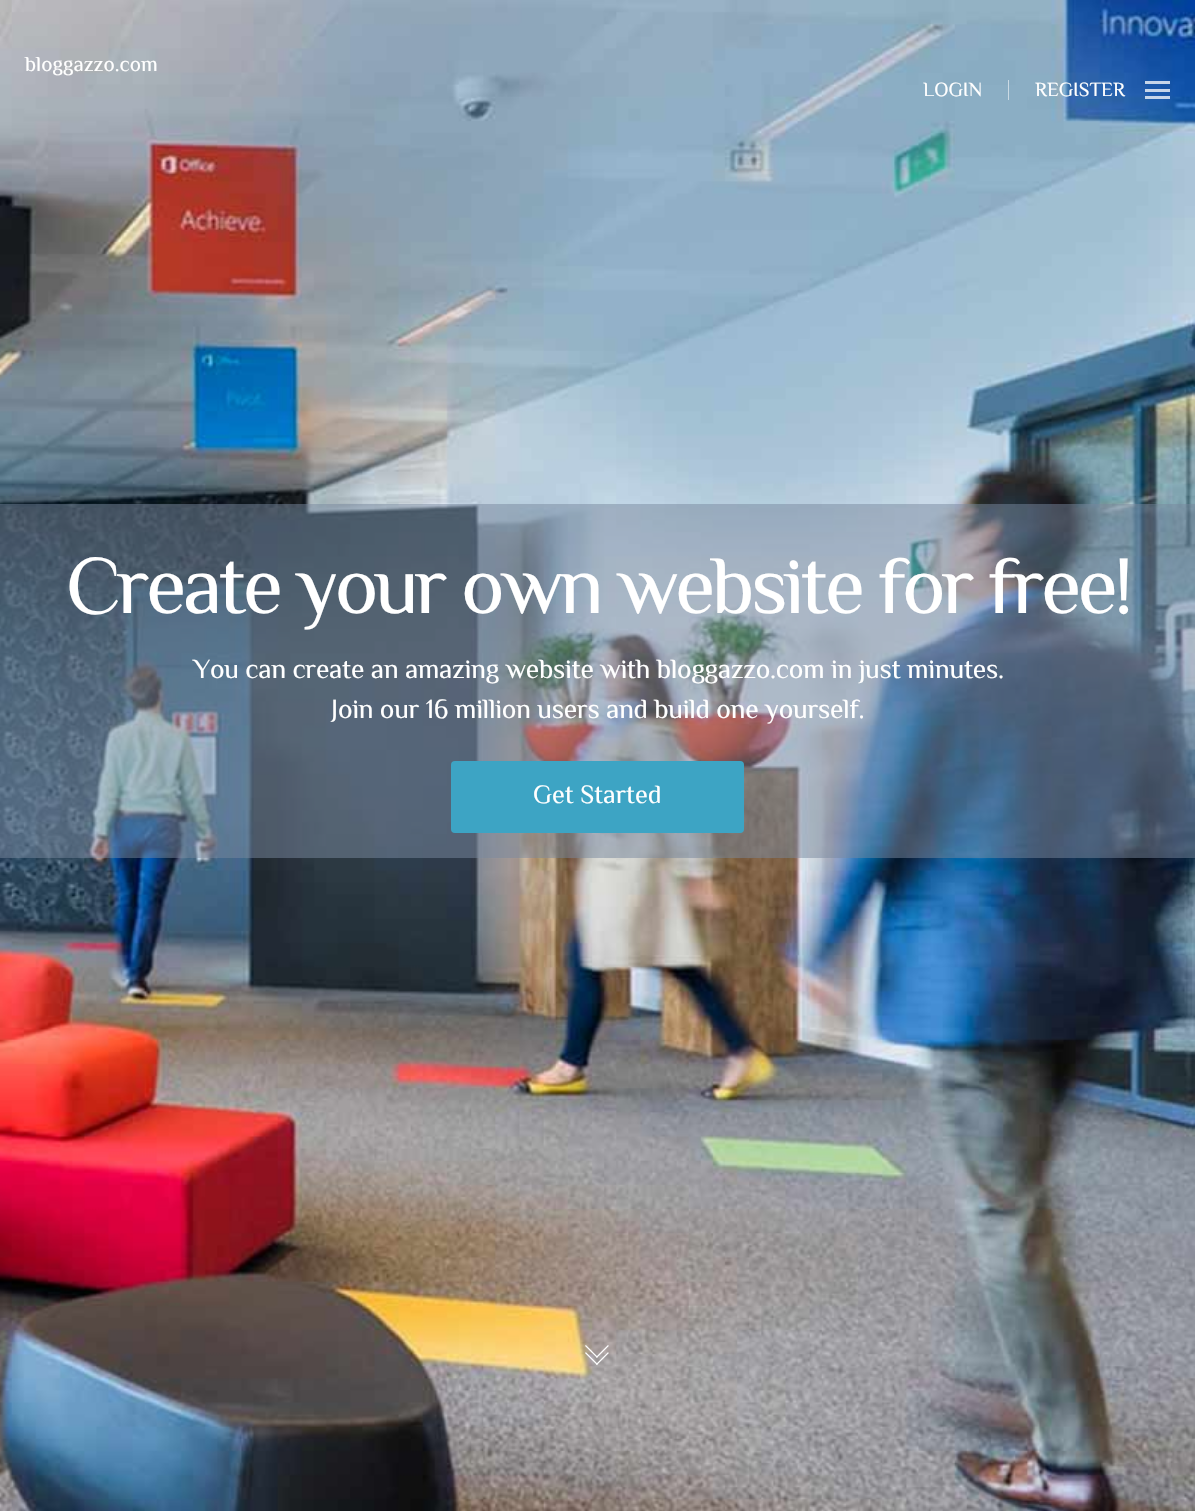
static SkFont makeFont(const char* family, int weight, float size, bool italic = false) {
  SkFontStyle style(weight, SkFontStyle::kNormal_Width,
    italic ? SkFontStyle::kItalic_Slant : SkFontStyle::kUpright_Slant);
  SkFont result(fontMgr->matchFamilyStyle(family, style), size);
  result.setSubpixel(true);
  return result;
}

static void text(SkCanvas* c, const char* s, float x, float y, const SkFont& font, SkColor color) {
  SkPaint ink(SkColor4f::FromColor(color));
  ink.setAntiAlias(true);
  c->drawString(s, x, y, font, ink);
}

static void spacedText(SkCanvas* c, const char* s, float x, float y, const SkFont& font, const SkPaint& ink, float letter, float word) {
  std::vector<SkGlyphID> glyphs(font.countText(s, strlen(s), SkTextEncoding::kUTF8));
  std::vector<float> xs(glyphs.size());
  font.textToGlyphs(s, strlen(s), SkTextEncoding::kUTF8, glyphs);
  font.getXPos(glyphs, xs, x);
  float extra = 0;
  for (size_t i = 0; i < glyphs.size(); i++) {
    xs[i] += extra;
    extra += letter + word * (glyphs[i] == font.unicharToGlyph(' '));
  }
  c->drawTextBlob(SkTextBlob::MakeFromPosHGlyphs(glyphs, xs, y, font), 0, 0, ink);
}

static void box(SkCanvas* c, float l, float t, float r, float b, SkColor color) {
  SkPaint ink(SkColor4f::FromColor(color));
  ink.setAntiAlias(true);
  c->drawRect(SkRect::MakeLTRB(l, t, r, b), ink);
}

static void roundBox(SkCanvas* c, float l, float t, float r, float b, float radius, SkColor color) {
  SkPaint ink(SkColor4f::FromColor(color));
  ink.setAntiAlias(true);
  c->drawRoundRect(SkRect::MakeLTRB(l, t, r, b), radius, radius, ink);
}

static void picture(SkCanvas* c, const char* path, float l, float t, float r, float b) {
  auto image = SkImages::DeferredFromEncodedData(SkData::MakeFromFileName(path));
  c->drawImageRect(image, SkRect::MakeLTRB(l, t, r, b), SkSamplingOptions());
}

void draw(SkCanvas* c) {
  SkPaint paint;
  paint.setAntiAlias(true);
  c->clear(0xffffffff);
  picture(c, "img_01.png", 0, 0, 1195, 1511);
  SkFont face1 = makeFont("Philosopher", 400, 21.25f);
  text(c, "bloggazzo.com", 25, 71, face1, 0xffffffff);
  SkFont face2 = makeFont("Philosopher", 400, 20);
  text(c, "LOGIN", 923, 96, face2, 0xffffffff);
  box(c, 1008, 80, 1009, 100, 0xffcbdae4);
  text(c, "REGISTER", 1035, 96, face2, 0xffffffff);
  box(c, 1145, 89, 1170, 92, 0xbfffffff);
  box(c, 1145, 81, 1170, 84, 0xbfffffff);
  box(c, 1145, 96, 1170, 99, 0xbfffffff);
  box(c, 0, 504, 1195, 858, 0x8078889e);
  SkFont face3 = makeFont("Philosopher", 400, 82.5f);
  paint.setColor(0xffffffff);
  spacedText(c, "Create your own website for free!", 66, 613, face3, paint, -3.75f, 0);
  SkFont face4 = makeFont("Philosopher", 400, 27.5f);
  spacedText(c, "You can create an amazing website with bloggazzo.com in just minutes.", 193, 678, face4, paint, -0.3f, 0);
  spacedText(c, "Join our 16 million users and build one yourself.", 331, 718, face4, paint, -0.3f, 0);
  roundBox(c, 451, 761, 744, 833, 4, 0xff3da4c4);
  SkFont face5 = makeFont("Philosopher", 400, 26.25f);
  text(c, "Get Started", 533, 803, face5, 0xffffffff);
  picture(c, "img_02.png", 585, 1345, 609, 1365);
}
